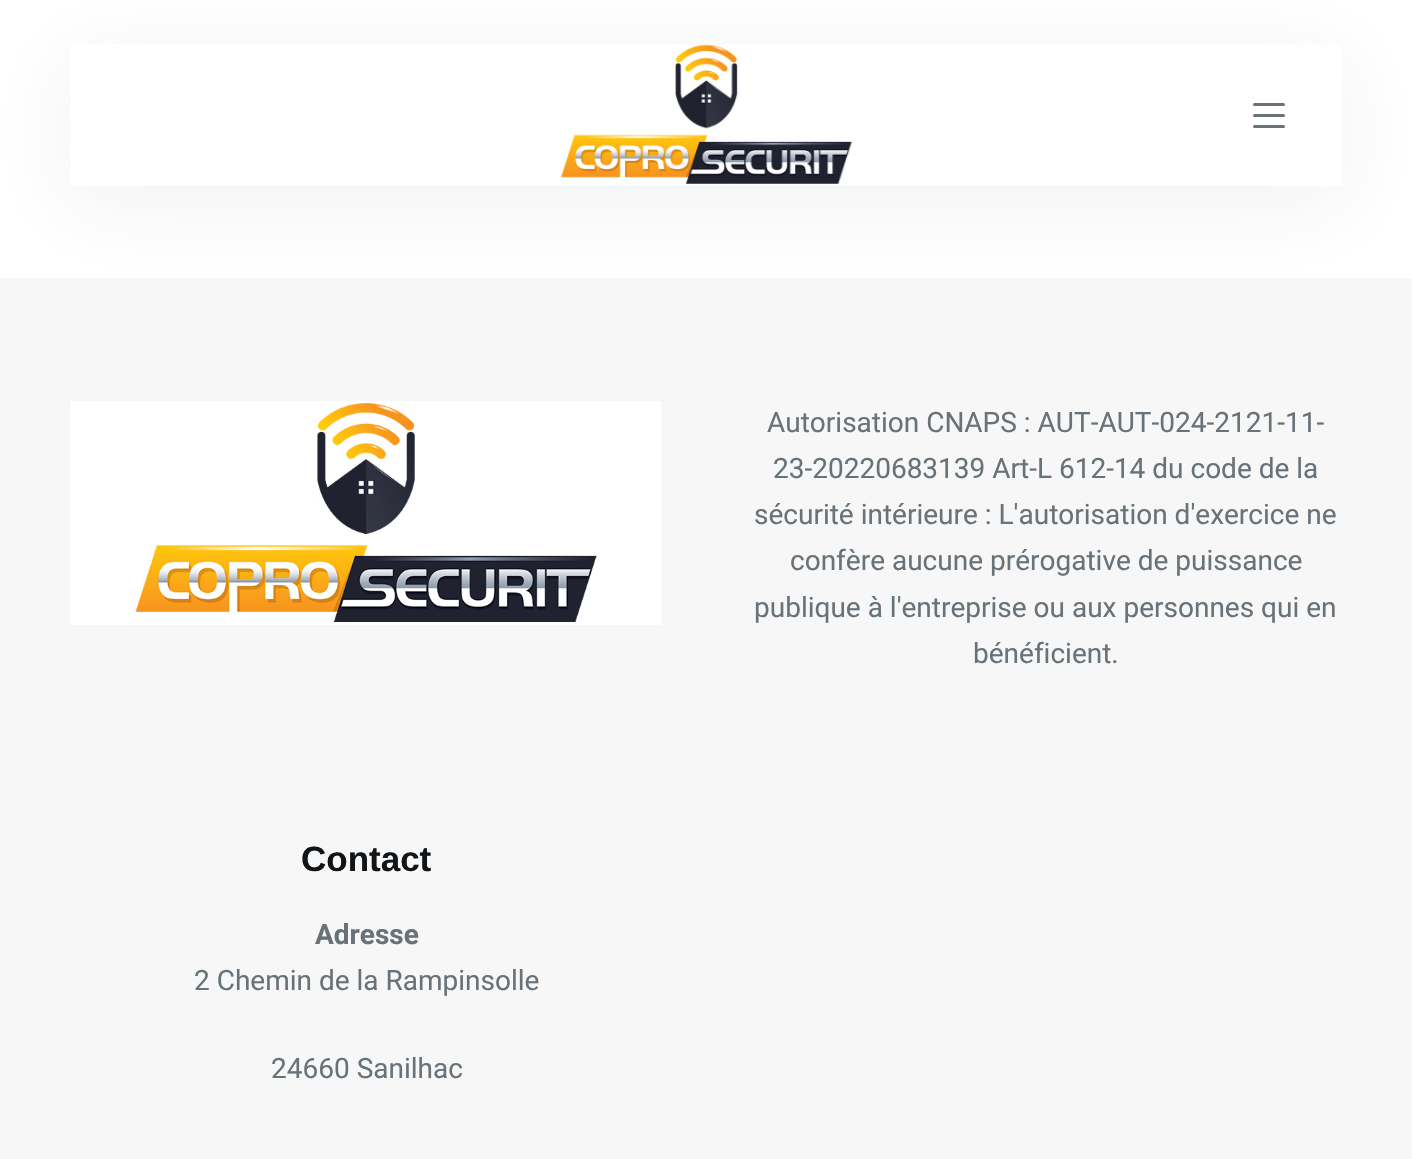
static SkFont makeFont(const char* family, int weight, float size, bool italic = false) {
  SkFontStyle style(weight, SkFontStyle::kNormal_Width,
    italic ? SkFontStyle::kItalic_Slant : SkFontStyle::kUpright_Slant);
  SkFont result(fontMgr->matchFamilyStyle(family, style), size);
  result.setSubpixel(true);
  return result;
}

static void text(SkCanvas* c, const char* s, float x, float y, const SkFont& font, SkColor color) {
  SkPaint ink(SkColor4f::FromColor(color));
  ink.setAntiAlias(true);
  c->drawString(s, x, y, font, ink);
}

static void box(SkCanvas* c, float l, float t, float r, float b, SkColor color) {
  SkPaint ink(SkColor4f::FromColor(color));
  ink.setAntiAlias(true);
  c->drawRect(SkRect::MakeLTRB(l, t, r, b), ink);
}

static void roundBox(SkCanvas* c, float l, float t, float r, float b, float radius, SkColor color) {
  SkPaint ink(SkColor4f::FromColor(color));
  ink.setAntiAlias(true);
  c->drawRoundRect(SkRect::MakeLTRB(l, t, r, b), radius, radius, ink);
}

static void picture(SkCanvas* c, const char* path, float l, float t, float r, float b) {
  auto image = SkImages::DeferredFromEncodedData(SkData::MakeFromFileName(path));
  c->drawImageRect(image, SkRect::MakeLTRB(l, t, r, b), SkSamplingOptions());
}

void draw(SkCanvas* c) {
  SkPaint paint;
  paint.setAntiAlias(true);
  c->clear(0xffffffff);
  box(c, 0, 278, 1412, 1159, 0xfff7f7f7);
  paint.setColor(0x122c3e50);
  paint.setMaskFilter(SkMaskFilter::MakeBlur(kNormal_SkBlurStyle, 44));
  c->drawRect(SkRect::MakeLTRB(70, 61, 1342, 203), paint);
  paint.setMaskFilter(nullptr);
  box(c, 70, 44, 1342, 186, 0xffffffff);
  picture(c, "img_01.png", 560, 44, 853, 184);
  roundBox(c, 1253, 103, 1285, 106, 1.5f, 0xff687279);
  roundBox(c, 1253, 114, 1285, 117, 1.5f, 0xff687279);
  roundBox(c, 1253, 125, 1285, 128, 1.5f, 0xff687279);
  picture(c, "img_02.png", 70, 401, 662, 625);
  SkFont face1 = makeFont("Roboto", 400, 28);
  text(c, "Autorisation CNAPS : AUT-AUT-024-2121-11-", 767, 432, face1, 0xff687279);
  text(c, "23-20220683139 Art-L 612-14 du code de la", 773, 478, face1, 0xff687279);
  text(c, "sécurité intérieure : L'autorisation d'exercice ne", 754, 524, face1, 0xff687279);
  text(c, "confère aucune prérogative de puissance", 790, 570, face1, 0xff687279);
  text(c, "publique à l'entreprise ou aux personnes qui en", 754, 617, face1, 0xff687279);
  text(c, "bénéficient.", 973, 663, face1, 0xff687279);
  SkFont face2 = makeFont("Liberation Sans", 700, 35);
  text(c, "Contact", 301, 871, face2, 0xff111518);
  SkFont face3 = makeFont("Roboto", 700, 28);
  text(c, "Adresse", 315, 944, face3, 0xff687279);
  text(c, "2 Chemin de la Rampinsolle", 194, 990, face1, 0xff687279);
  text(c, "24660 Sanilhac", 271, 1078, face1, 0xff687279);
}
